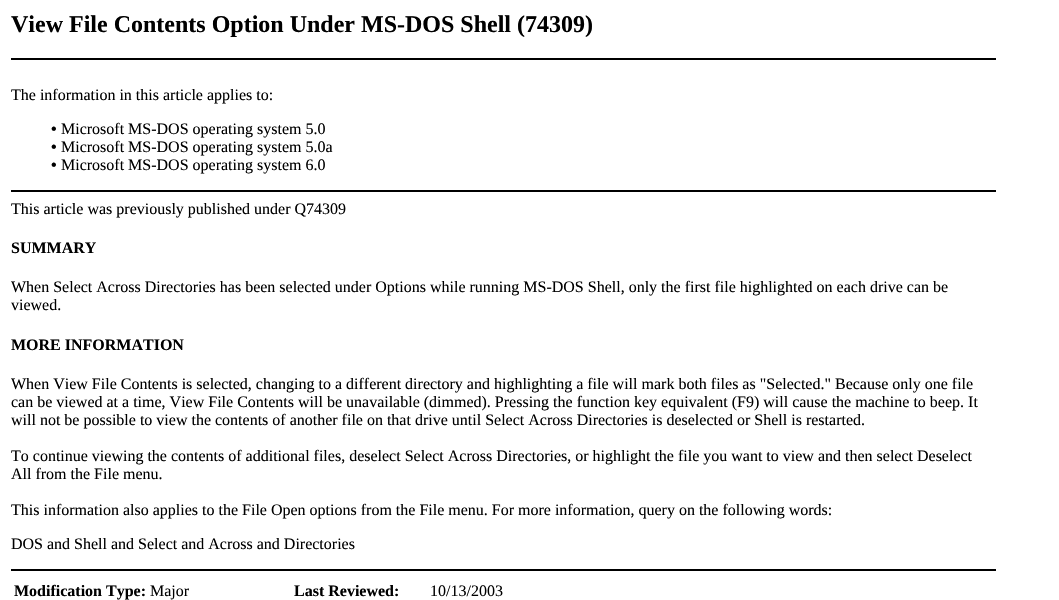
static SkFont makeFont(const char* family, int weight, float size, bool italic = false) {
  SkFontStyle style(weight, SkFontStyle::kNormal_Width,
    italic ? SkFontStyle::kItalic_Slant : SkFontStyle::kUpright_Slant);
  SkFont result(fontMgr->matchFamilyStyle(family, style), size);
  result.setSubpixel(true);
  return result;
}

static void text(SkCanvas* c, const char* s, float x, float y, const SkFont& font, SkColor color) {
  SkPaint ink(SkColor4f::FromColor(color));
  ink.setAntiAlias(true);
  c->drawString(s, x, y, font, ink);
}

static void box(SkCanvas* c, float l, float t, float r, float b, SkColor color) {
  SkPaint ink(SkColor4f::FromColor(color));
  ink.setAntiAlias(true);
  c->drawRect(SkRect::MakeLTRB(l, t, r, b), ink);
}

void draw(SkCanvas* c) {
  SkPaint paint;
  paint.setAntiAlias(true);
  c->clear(0xffffffff);
  SkFont face1 = makeFont("Liberation Serif", 700, 24);
  text(c, "View File Contents Option Under MS-DOS Shell (74309)", 11, 32, face1, 0xff000000);
  box(c, 11, 58, 996, 60, 0xff000000);
  SkFont face2 = makeFont("Liberation Serif", 400, 16);
  text(c, "The information in this article applies to:", 11, 100, face2, 0xff000000);
  SkFont face3 = makeFont("Liberation Serif", 700, 16);
  text(c, "•", 51, 134, face3, 0xff000000);
  text(c, "Microsoft MS-DOS operating system 5.0", 61, 134, face2, 0xff000000);
  text(c, "•", 51, 152, face3, 0xff000000);
  text(c, "Microsoft MS-DOS operating system 5.0a", 61, 152, face2, 0xff000000);
  text(c, "•", 51, 170, face3, 0xff000000);
  text(c, "Microsoft MS-DOS operating system 6.0", 61, 170, face2, 0xff000000);
  box(c, 11, 190, 996, 192, 0xff000000);
  text(c, "This article was previously published under Q74309", 11, 214, face2, 0xff000000);
  text(c, "SUMMARY", 11, 253, face3, 0xff000000);
  text(c, "When Select Across Directories has been selected under Options while running MS-DOS Shell, only the first file highlighted on each drive can be", 11, 292, face2, 0xff000000);
  text(c, "viewed.", 11, 310, face2, 0xff000000);
  text(c, "MORE INFORMATION", 11, 350, face3, 0xff000000);
  text(c, "When View File Contents is selected, changing to a different directory and highlighting a file will mark both files as \"Selected.\" Because only one file", 11, 389, face2, 0xff000000);
  text(c, "can be viewed at a time, View File Contents will be unavailable (dimmed). Pressing the function key equivalent (F9) will cause the machine to beep. It", 11, 407, face2, 0xff000000);
  text(c, "will not be possible to view the contents of another file on that drive until Select Across Directories is deselected or Shell is restarted.", 11, 425, face2, 0xff000000);
  text(c, "To continue viewing the contents of additional files, deselect Select Across Directories, or highlight the file you want to view and then select Deselect", 11, 461, face2, 0xff000000);
  text(c, "All from the File menu.", 11, 479, face2, 0xff000000);
  text(c, "This information also applies to the File Open options from the File menu. For more information, query on the following words:", 11, 515, face2, 0xff000000);
  text(c, "DOS and Shell and Select and Across and Directories", 11, 549, face2, 0xff000000);
  box(c, 11, 569, 996, 571, 0xff000000);
  text(c, "Modification Type:", 14, 596, face3, 0xff000000);
  text(c, "Major", 150, 596, face2, 0xff000000);
  text(c, "Last Reviewed:", 294, 596, face3, 0xff000000);
  text(c, "10/13/2003", 430, 596, face2, 0xff000000);
}
